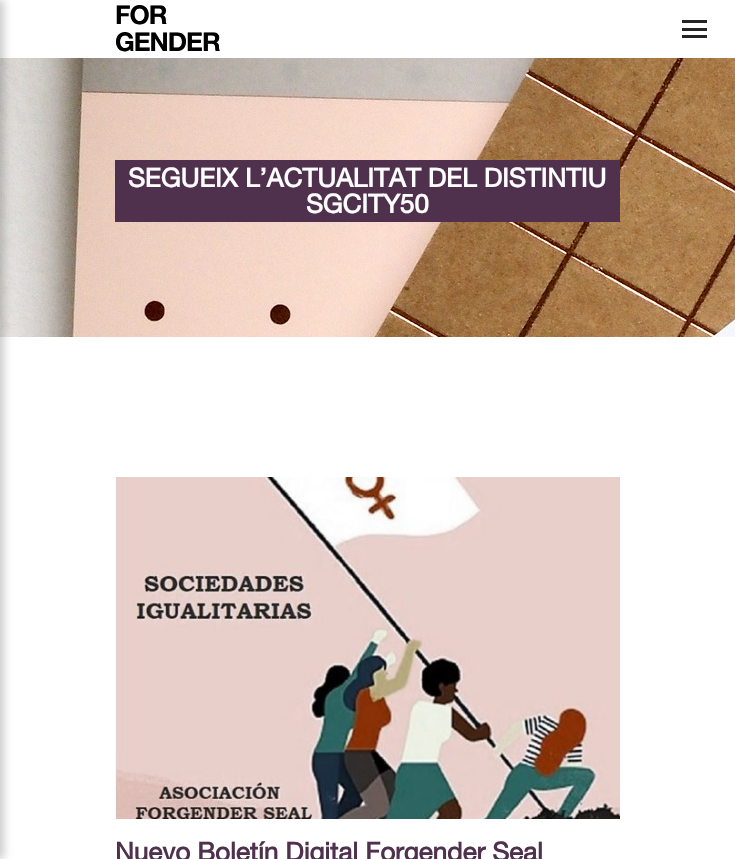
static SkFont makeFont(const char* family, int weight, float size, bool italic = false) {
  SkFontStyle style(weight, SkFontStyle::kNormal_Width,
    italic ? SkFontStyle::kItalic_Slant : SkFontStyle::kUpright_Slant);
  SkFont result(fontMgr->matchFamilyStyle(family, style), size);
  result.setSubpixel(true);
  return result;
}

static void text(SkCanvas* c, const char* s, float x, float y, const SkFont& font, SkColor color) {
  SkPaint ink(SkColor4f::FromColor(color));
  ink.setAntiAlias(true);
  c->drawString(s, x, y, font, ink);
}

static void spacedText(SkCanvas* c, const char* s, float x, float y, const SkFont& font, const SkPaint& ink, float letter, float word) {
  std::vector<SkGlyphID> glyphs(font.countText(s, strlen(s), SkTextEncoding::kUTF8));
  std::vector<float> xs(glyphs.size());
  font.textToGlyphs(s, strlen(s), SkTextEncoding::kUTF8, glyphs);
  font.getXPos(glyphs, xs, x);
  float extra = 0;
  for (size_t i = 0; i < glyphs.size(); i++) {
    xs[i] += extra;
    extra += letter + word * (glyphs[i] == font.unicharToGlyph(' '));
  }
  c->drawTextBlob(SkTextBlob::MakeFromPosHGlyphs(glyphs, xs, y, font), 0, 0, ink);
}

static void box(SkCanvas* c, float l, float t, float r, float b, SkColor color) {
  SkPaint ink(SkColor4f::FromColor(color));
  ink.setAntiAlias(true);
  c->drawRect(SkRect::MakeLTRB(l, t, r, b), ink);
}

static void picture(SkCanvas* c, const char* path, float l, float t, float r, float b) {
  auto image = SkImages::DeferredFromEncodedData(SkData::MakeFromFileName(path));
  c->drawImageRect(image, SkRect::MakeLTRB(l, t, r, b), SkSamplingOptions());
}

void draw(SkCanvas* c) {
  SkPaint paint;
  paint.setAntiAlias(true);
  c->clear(0xffffffff);
  picture(c, "img_01.png", 0, 58, 735, 337);
  paint.setColor(0x33000000);
  paint.setMaskFilter(SkMaskFilter::MakeBlur(kNormal_SkBlurStyle, 4));
  c->drawRect(SkRect::MakeLTRB(-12, 0, 4, 859), paint);
  paint.setMaskFilter(nullptr);
  SkFont face1 = makeFont("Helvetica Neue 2", 700, 26);
  paint.setColor(0xff000000);
  spacedText(c, "FOR", 115, 24, face1, paint, -1, 0);
  spacedText(c, "GENDER", 115, 51, face1, paint, -1, 0);
  box(c, 682, 20, 707, 23, 0xff242424);
  box(c, 682, 28, 707, 31, 0xff242424);
  box(c, 682, 35, 707, 38, 0xff242424);
  box(c, 115, 160, 620, 222, 0xff4f314e);
  SkFont face2 = makeFont("Helvetica Neue", 700, 26);
  text(c, "SEGUEIX L’ACTUALITAT DEL DISTINTIU", 128, 187, face2, 0xffffffff);
  text(c, "SGCITY50", 306, 213, face2, 0xffffffff);
  picture(c, "img_02.png", 115, 477, 620, 819);
  text(c, "Nuevo Boletín Digital Forgender Seal", 115, 861, face2, 0xff4f314e);
}
